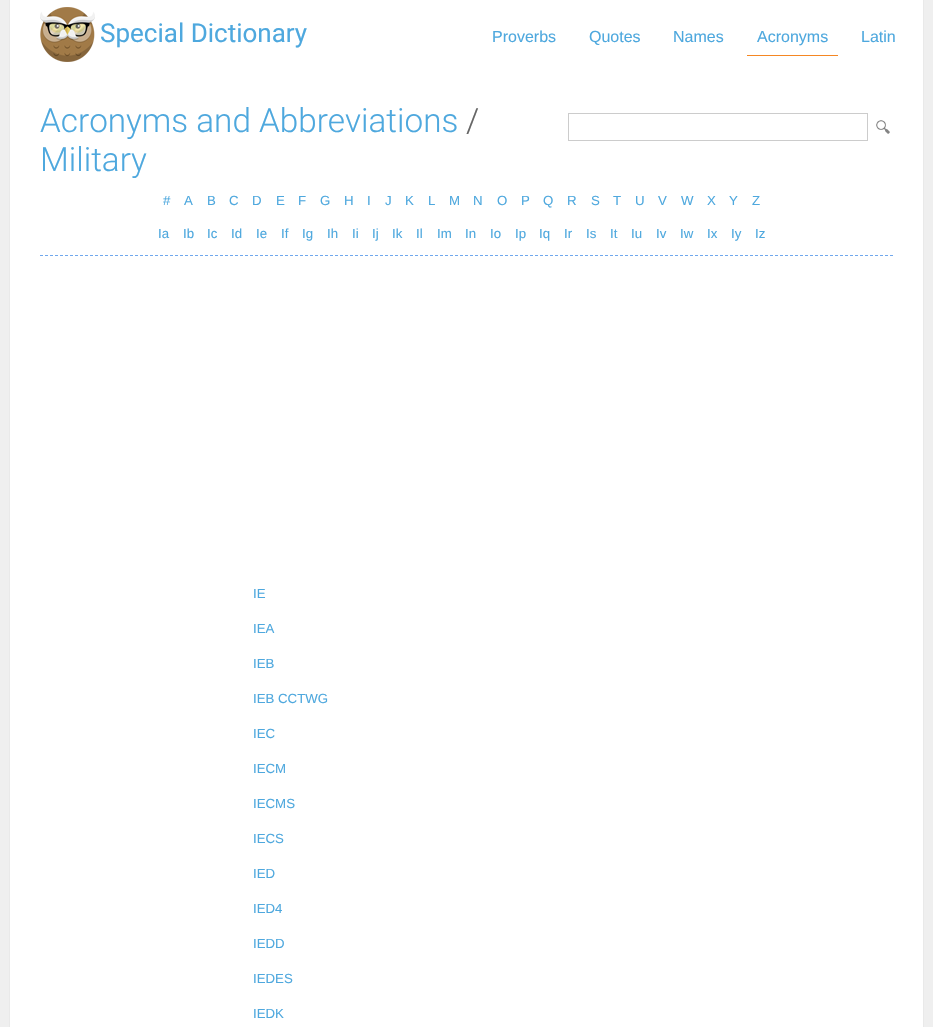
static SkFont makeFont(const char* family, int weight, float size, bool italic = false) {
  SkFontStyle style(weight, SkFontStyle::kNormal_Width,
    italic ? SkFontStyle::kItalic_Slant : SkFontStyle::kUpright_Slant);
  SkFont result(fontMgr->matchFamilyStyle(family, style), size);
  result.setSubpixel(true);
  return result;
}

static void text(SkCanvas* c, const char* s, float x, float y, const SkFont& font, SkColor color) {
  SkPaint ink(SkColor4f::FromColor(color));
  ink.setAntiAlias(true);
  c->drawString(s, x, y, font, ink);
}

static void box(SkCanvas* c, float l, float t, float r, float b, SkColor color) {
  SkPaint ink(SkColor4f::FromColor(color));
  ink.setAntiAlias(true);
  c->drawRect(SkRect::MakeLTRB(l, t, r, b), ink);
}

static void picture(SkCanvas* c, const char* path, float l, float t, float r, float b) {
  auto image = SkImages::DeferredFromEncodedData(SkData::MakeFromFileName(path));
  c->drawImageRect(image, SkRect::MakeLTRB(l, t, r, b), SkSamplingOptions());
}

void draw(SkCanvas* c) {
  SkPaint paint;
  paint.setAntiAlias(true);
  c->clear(0xffefefef);
  paint.setColor(0xffcccccc);
  paint.setMaskFilter(SkMaskFilter::MakeBlur(kNormal_SkBlurStyle, 0.5f));
  c->drawRect(SkRect::MakeLTRB(10, 0, 923, 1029), paint);
  paint.setMaskFilter(nullptr);
  box(c, 10, 0, 923, 1027, 0xffffffff);
  picture(c, "img_01.png", 40, 7, 95, 62);
  SkFont face1 = makeFont("Roboto", 400, 26);
  text(c, "Special Dictionary", 100, 42, face1, 0xff4ea8de);
  SkFont face2 = makeFont("Liberation Sans", 400, 16);
  text(c, "Proverbs", 492, 42, face2, 0xff4ea8de);
  text(c, "Quotes", 589, 42, face2, 0xff4ea8de);
  text(c, "Names", 673, 42, face2, 0xff4ea8de);
  text(c, "Acronyms", 757, 42, face2, 0xff4ea8de);
  box(c, 747, 55, 838, 56, 0xfff58723);
  text(c, "Latin", 861, 42, face2, 0xff4ea8de);
  SkFont face3 = makeFont("Roboto", 300, 33.25f);
  text(c, "Acronyms and Abbreviations", 40, 132, face3, 0xff4ea8de);
  text(c, "/", 466, 132, face3, 0xff666666);
  text(c, "Military", 40, 171, face3, 0xff4ea8de);
  paint.setStyle(SkPaint::kStroke_Style);
  paint.setStrokeWidth(1);
  c->drawRect(SkRect::MakeLTRB(568.5f, 113.5f, 867.5f, 140.5f), paint);
  picture(c, "img_02.png", 876, 120, 890, 134);
  SkFont face4 = makeFont("Liberation Sans", 400, 13.25f);
  text(c, "#", 163, 205, face4, 0xff4ea8de);
  text(c, "A", 184, 205, face4, 0xff4ea8de);
  text(c, "B", 207, 205, face4, 0xff4ea8de);
  text(c, "C", 229, 205, face4, 0xff4ea8de);
  text(c, "D", 252, 205, face4, 0xff4ea8de);
  text(c, "E", 276, 205, face4, 0xff4ea8de);
  text(c, "F", 298, 205, face4, 0xff4ea8de);
  text(c, "G", 320, 205, face4, 0xff4ea8de);
  text(c, "H", 344, 205, face4, 0xff4ea8de);
  text(c, "I", 367, 205, face4, 0xff4ea8de);
  text(c, "J", 385, 205, face4, 0xff4ea8de);
  text(c, "K", 405, 205, face4, 0xff4ea8de);
  text(c, "L", 428, 205, face4, 0xff4ea8de);
  text(c, "M", 449, 205, face4, 0xff4ea8de);
  text(c, "N", 473, 205, face4, 0xff4ea8de);
  text(c, "O", 497, 205, face4, 0xff4ea8de);
  text(c, "P", 521, 205, face4, 0xff4ea8de);
  text(c, "Q", 543, 205, face4, 0xff4ea8de);
  text(c, "R", 567, 205, face4, 0xff4ea8de);
  text(c, "S", 591, 205, face4, 0xff4ea8de);
  text(c, "T", 613, 205, face4, 0xff4ea8de);
  text(c, "U", 635, 205, face4, 0xff4ea8de);
  text(c, "V", 658, 205, face4, 0xff4ea8de);
  text(c, "W", 681, 205, face4, 0xff4ea8de);
  text(c, "X", 707, 205, face4, 0xff4ea8de);
  text(c, "Y", 729, 205, face4, 0xff4ea8de);
  text(c, "Z", 752, 205, face4, 0xff4ea8de);
  text(c, "Ia", 158, 238, face4, 0xff4ea8de);
  text(c, "Ib", 183, 238, face4, 0xff4ea8de);
  text(c, "Ic", 207, 238, face4, 0xff4ea8de);
  text(c, "Id", 231, 238, face4, 0xff4ea8de);
  text(c, "Ie", 256, 238, face4, 0xff4ea8de);
  text(c, "If", 281, 238, face4, 0xff4ea8de);
  text(c, "Ig", 302, 238, face4, 0xff4ea8de);
  text(c, "Ih", 327, 238, face4, 0xff4ea8de);
  text(c, "Ii", 352, 238, face4, 0xff4ea8de);
  text(c, "Ij", 372, 238, face4, 0xff4ea8de);
  text(c, "Ik", 392, 238, face4, 0xff4ea8de);
  text(c, "Il", 416, 238, face4, 0xff4ea8de);
  text(c, "Im", 437, 238, face4, 0xff4ea8de);
  text(c, "In", 465, 238, face4, 0xff4ea8de);
  text(c, "Io", 490, 238, face4, 0xff4ea8de);
  text(c, "Ip", 515, 238, face4, 0xff4ea8de);
  text(c, "Iq", 539, 238, face4, 0xff4ea8de);
  text(c, "Ir", 564, 238, face4, 0xff4ea8de);
  text(c, "Is", 586, 238, face4, 0xff4ea8de);
  text(c, "It", 610, 238, face4, 0xff4ea8de);
  text(c, "Iu", 631, 238, face4, 0xff4ea8de);
  text(c, "Iv", 656, 238, face4, 0xff4ea8de);
  text(c, "Iw", 680, 238, face4, 0xff4ea8de);
  text(c, "Ix", 707, 238, face4, 0xff4ea8de);
  text(c, "Iy", 731, 238, face4, 0xff4ea8de);
  text(c, "Iz", 755, 238, face4, 0xff4ea8de);
  paint.setColor(0xff70a8ed);
  paint.setPathEffect(SkDashPathEffect::Make({{3, 2}}, 0));
  c->drawPath(SkPathBuilder().moveTo(40, 255.5f).lineTo(893, 255.5f).detach(), paint);
  paint.setPathEffect(nullptr);
  text(c, "IE", 253, 598, face4, 0xff4ea8de);
  text(c, "IEA", 253, 633, face4, 0xff4ea8de);
  text(c, "IEB", 253, 668, face4, 0xff4ea8de);
  text(c, "IEB CCTWG", 253, 703, face4, 0xff4ea8de);
  text(c, "IEC", 253, 738, face4, 0xff4ea8de);
  text(c, "IECM", 253, 773, face4, 0xff4ea8de);
  text(c, "IECMS", 253, 808, face4, 0xff4ea8de);
  text(c, "IECS", 253, 843, face4, 0xff4ea8de);
  text(c, "IED", 253, 878, face4, 0xff4ea8de);
  text(c, "IED4", 253, 913, face4, 0xff4ea8de);
  text(c, "IEDD", 253, 948, face4, 0xff4ea8de);
  text(c, "IEDES", 253, 983, face4, 0xff4ea8de);
  text(c, "IEDK", 253, 1018, face4, 0xff4ea8de);
}
